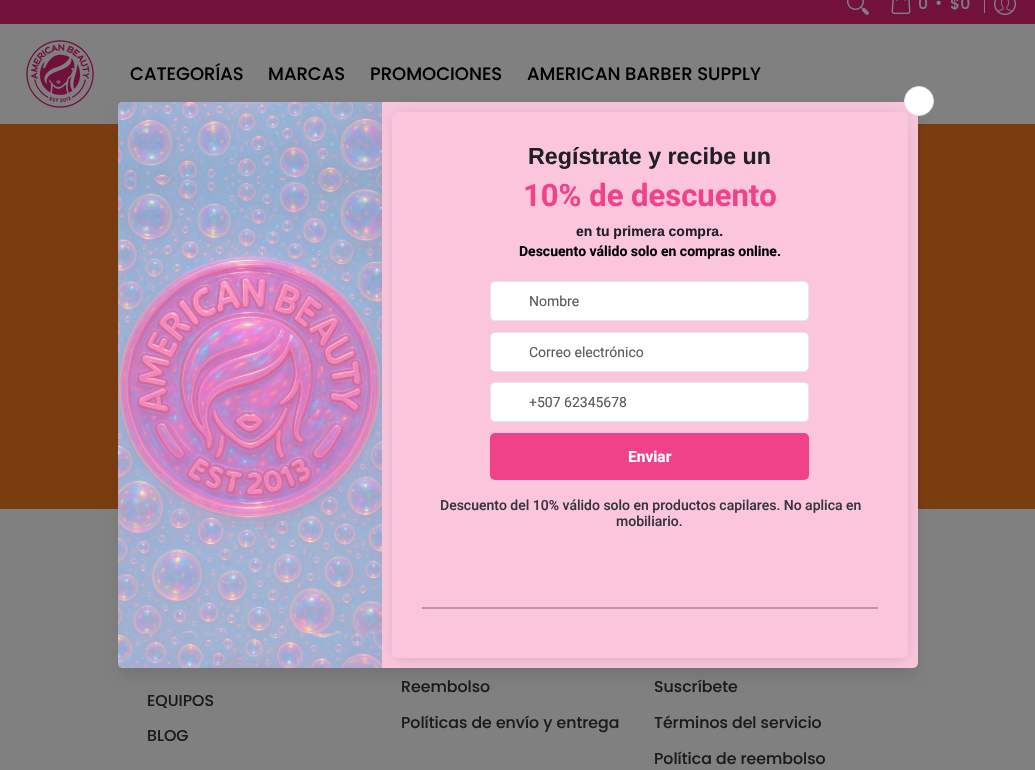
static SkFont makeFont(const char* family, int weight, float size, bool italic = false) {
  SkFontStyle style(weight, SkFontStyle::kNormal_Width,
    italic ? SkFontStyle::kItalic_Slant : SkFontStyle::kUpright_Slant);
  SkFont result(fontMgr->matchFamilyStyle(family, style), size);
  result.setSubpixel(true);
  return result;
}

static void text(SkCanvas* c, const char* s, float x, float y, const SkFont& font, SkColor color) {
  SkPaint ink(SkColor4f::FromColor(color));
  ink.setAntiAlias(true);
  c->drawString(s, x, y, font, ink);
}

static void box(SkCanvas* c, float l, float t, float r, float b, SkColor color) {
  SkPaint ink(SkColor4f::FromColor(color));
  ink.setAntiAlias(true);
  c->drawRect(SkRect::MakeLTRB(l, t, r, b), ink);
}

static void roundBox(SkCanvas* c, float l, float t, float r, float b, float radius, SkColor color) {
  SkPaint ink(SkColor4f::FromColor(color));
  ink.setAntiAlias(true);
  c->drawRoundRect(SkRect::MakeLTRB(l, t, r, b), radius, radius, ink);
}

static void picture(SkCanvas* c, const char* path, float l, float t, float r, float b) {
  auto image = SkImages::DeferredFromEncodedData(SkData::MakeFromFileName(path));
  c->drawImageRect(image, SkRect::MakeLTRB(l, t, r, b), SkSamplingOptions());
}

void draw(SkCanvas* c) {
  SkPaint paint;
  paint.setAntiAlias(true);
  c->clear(0xff808080);
  box(c, 0, 0, 1035, 24, 0xff72113b);
  picture(c, "img_01.png", 847, 0, 869, 15);
  picture(c, "img_02.png", 891, 0, 911, 14);
  SkFont face1 = makeFont("Poppins", 500, 15.75f);
  text(c, "0", 918, 9, face1, 0xff808080);
  text(c, "•", 935, 8, face1, 0xff808080);
  text(c, "$0", 950, 9, face1, 0xff808080);
  box(c, 984, 0, 985, 13, 0xff808080);
  picture(c, "img_03.png", 994, 0, 1016, 15);
  picture(c, "img_04.png", 26, 40, 94, 108);
  SkFont face2 = makeFont("Poppins", 500, 18);
  text(c, "CATEGORÍAS", 130, 80, face2, 0xff000000);
  text(c, "MARCAS", 268, 80, face2, 0xff000000);
  text(c, "PROMOCIONES", 370, 80, face2, 0xff000000);
  text(c, "AMERICAN BARBER SUPPLY", 527, 80, face2, 0xff000000);
  box(c, 0, 124, 1035, 509, 0xff7a3d10);
  paint.setColor(0x1a000000);
  paint.setMaskFilter(SkMaskFilter::MakeBlur(kNormal_SkBlurStyle, 7.5f));
  c->drawRoundRect(SkRect::MakeLTRB(121, 115, 915, 675), 2.5f, 2.5f, paint);
  paint.setMaskFilter(nullptr);
  roundBox(c, 118, 102, 918, 668, 5, 0xfffbc6dc);
  paint.setColor(0x0d000000);
  paint.setMaskFilter(SkMaskFilter::MakeBlur(kNormal_SkBlurStyle, 3));
  c->drawRoundRect(SkRect::MakeLTRB(394, 118, 906, 660), 3, 3, paint);
  paint.setMaskFilter(nullptr);
  picture(c, "img_05.png", 118, 102, 382, 668);
  paint.setColor(0x1f000000);
  paint.setMaskFilter(SkMaskFilter::MakeBlur(kNormal_SkBlurStyle, 10));
  c->drawRoundRect(SkRect::MakeLTRB(395, 115, 905, 655), 2.5f, 2.5f, paint);
  paint.setMaskFilter(nullptr);
  roundBox(c, 392, 112, 908, 658, 5, 0xfffbc6dc);
  paint.setColor(0xffffffff);
  c->drawCircle(919, 101, 14.5f, paint);
  paint.setStyle(SkPaint::kStroke_Style);
  paint.setStrokeWidth(1);
  paint.setColor(0xffe2e8f0);
  c->drawCircle(919, 101, 14.5f, paint);
  SkFont face3 = makeFont("Liberation Sans", 700, 23.25f);
  text(c, "Regístrate y recibe un", 528, 164, face3, 0xff202020);
  SkFont face4 = makeFont("Roboto", 700, 31);
  text(c, "10% de descuento", 523, 206, face4, 0xfff04289);
  SkFont face5 = makeFont("Liberation Sans", 700, 14);
  text(c, "en tu primera compra.", 576, 236, face5, 0xff202020);
  SkFont face6 = makeFont("Roboto", 700, 14);
  text(c, "Descuento válido solo en compras online.", 519, 256, face6, 0xff000000);
  paint.setStyle(SkPaint::kFill_Style);
  paint.setColor(0xffffffff);
  c->drawRoundRect(SkRect::MakeLTRB(490.5f, 281.5f, 808.5f, 320.5f), 4.5f, 4.5f, paint);
  paint.setStyle(SkPaint::kStroke_Style);
  paint.setColor(0xffe2e8f0);
  c->drawRoundRect(SkRect::MakeLTRB(490.5f, 281.5f, 808.5f, 320.5f), 4.5f, 4.5f, paint);
  SkFont face7 = makeFont("Roboto", 400, 14);
  text(c, "Nombre", 529, 306, face7, 0xff595959);
  paint.setStyle(SkPaint::kFill_Style);
  paint.setColor(0xffffffff);
  c->drawRoundRect(SkRect::MakeLTRB(490.5f, 332.5f, 808.5f, 371.5f), 4.5f, 4.5f, paint);
  paint.setStyle(SkPaint::kStroke_Style);
  paint.setColor(0xffe2e8f0);
  c->drawRoundRect(SkRect::MakeLTRB(490.5f, 332.5f, 808.5f, 371.5f), 4.5f, 4.5f, paint);
  text(c, "Correo electrónico", 529, 357, face7, 0xff595959);
  paint.setStyle(SkPaint::kFill_Style);
  paint.setColor(0xffffffff);
  c->drawRoundRect(SkRect::MakeLTRB(490.5f, 382.5f, 808.5f, 421.5f), 4.5f, 4.5f, paint);
  paint.setStyle(SkPaint::kStroke_Style);
  paint.setColor(0xffe2e8f0);
  c->drawRoundRect(SkRect::MakeLTRB(490.5f, 382.5f, 808.5f, 421.5f), 4.5f, 4.5f, paint);
  text(c, "+507 62345678", 529, 407, face7, 0xff595959);
  roundBox(c, 490, 433, 809, 480, 5, 0xfff04289);
  SkFont face8 = makeFont("Roboto", 700, 15.5f);
  text(c, "Enviar", 628, 462, face8, 0xffffffff);
  SkFont face9 = makeFont("Roboto", 500, 14);
  text(c, "Descuento del 10% válido solo en productos capilares. No aplica en", 440, 510, face9, 0xff363636);
  text(c, "mobiliario.", 616, 526, face9, 0xff363636);
  box(c, 422, 607, 878, 609, 0xffbc95a5);
  text(c, "EQUIPOS", 147, 706, face1, 0xff1a1a1a);
  text(c, "BLOG", 147, 741, face1, 0xff1a1a1a);
  text(c, "Reembolso", 401, 692, face1, 0xff1a1a1a);
  text(c, "Políticas de envío y entrega", 401, 728, face1, 0xff1a1a1a);
  text(c, "Suscríbete", 654, 692, face1, 0xff1a1a1a);
  text(c, "Términos del servicio", 654, 728, face1, 0xff1a1a1a);
  text(c, "Política de reembolso", 654, 764, face1, 0xff1a1a1a);
}
